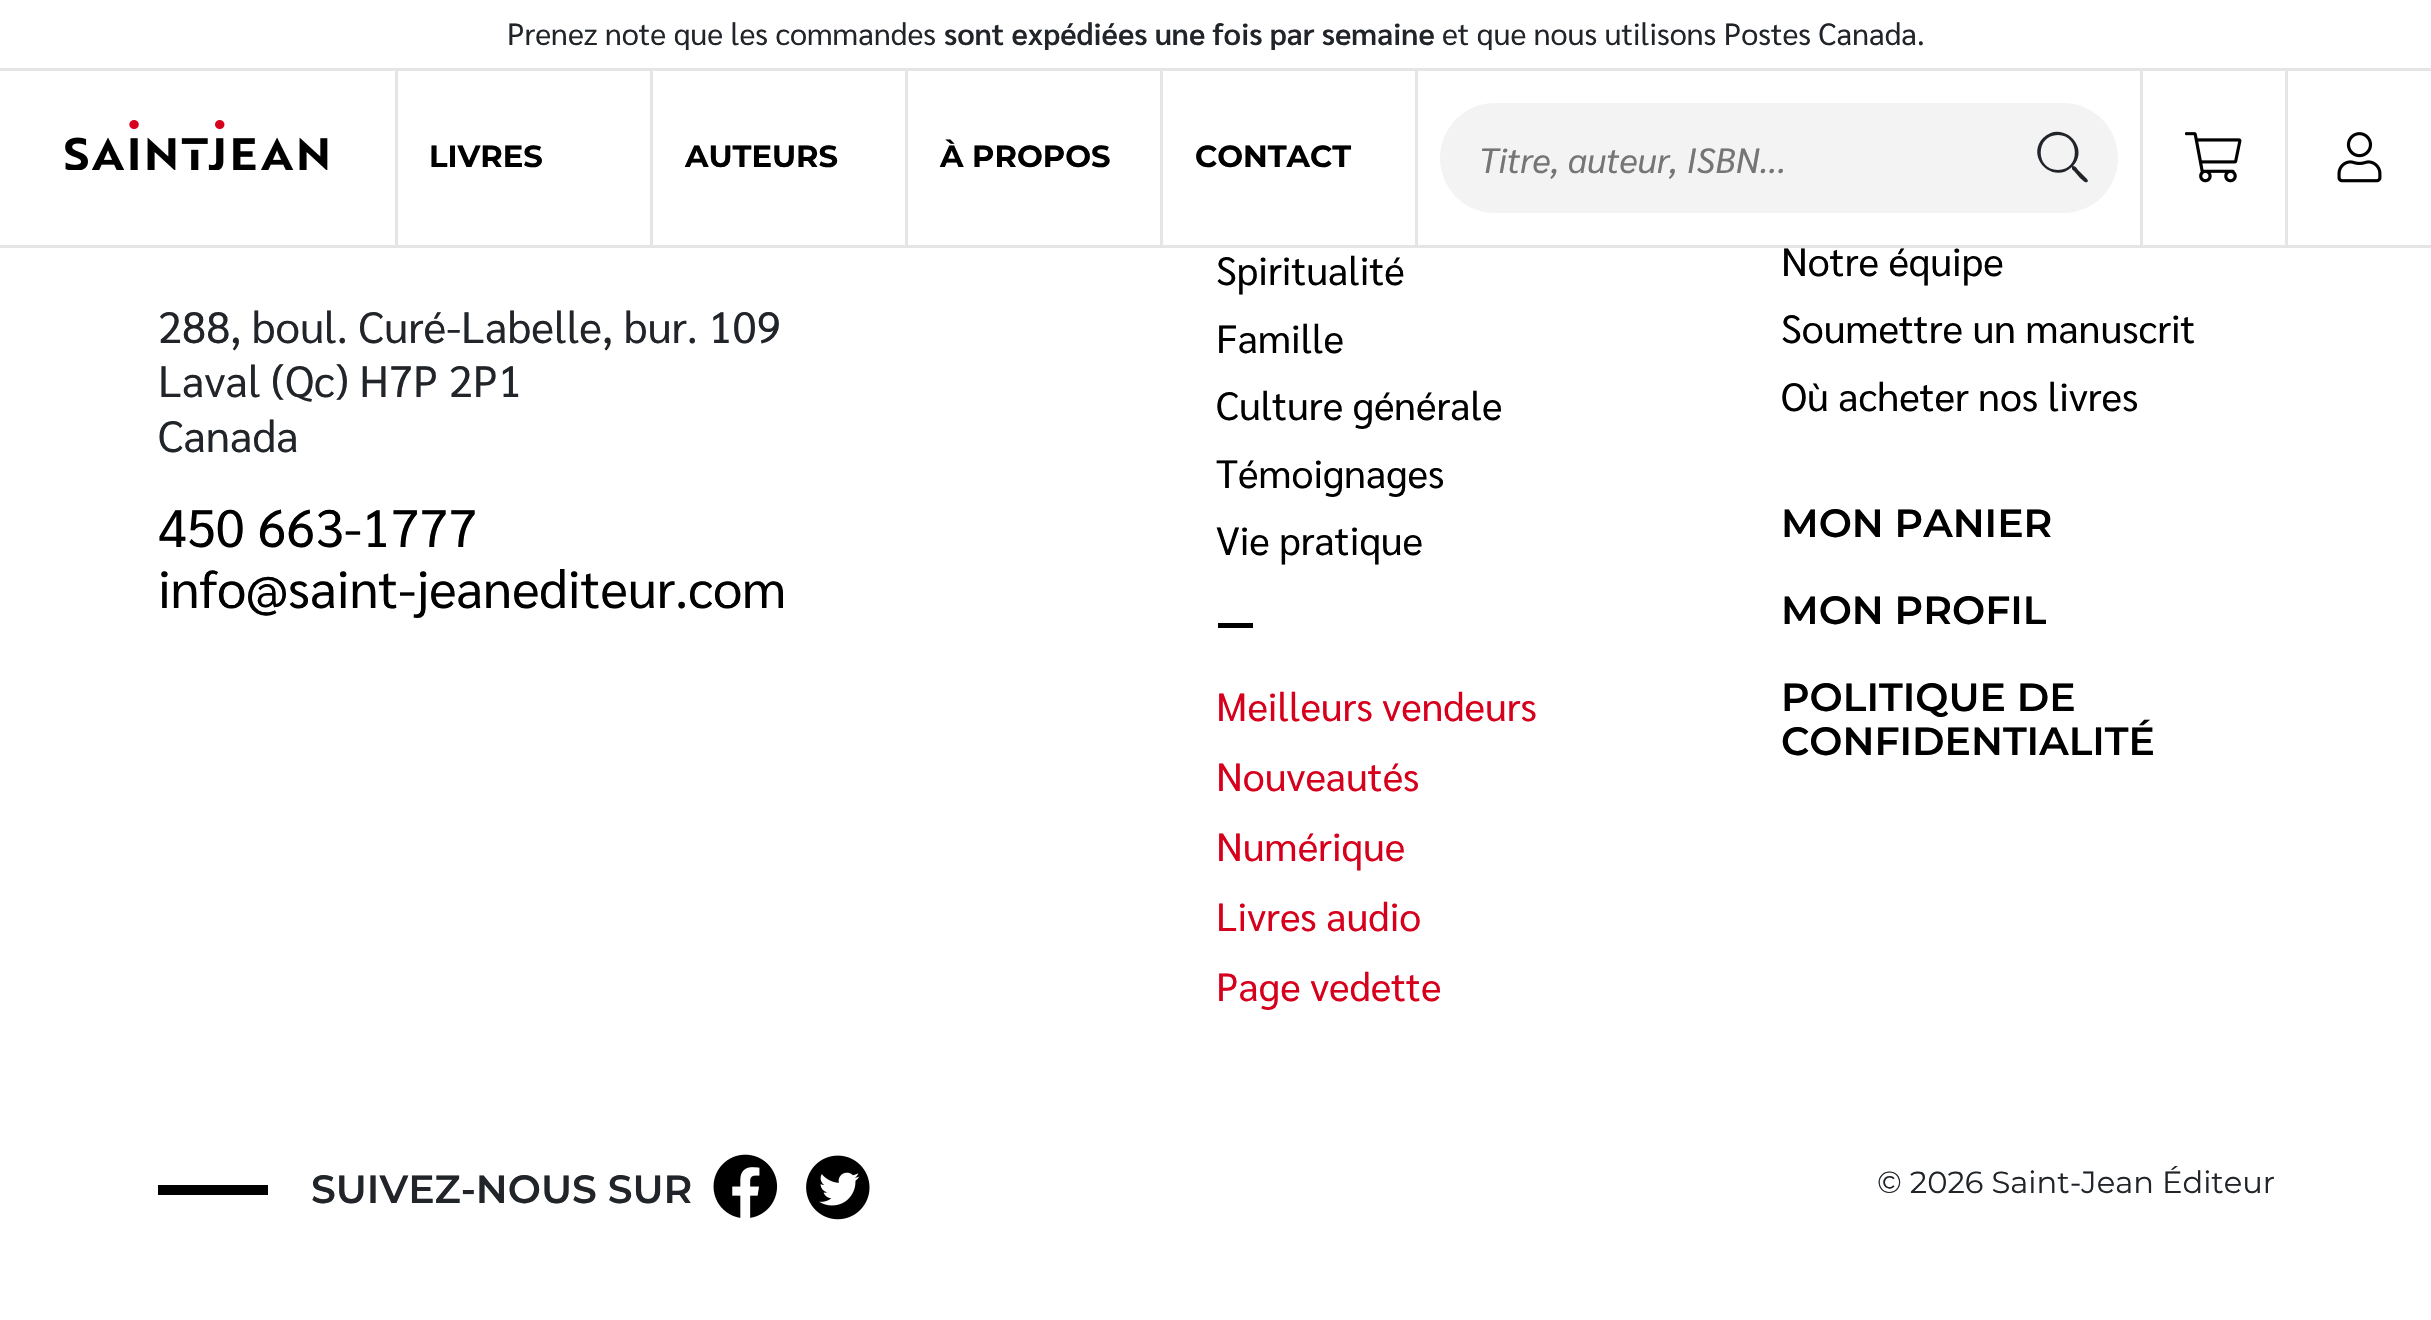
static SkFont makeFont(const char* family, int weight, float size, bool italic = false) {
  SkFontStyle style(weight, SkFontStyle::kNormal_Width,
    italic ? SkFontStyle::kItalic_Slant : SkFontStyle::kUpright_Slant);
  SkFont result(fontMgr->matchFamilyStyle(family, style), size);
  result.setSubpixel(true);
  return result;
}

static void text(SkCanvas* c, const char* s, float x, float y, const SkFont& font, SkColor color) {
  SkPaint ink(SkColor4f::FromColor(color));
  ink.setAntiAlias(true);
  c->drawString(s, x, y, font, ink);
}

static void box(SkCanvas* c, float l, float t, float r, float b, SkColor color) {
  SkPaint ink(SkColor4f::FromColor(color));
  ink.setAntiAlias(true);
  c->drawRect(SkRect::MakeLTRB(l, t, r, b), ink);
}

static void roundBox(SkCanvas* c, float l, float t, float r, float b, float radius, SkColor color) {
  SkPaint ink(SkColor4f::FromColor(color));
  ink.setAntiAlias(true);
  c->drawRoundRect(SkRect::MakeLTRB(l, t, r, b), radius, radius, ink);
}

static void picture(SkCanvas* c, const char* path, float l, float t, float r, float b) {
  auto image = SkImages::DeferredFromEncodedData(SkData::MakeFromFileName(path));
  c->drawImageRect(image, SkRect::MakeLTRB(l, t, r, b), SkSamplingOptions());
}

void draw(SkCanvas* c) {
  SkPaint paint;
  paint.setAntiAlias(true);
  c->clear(0xffffffff);
  box(c, 0, 245, 2431, 248, 0xffe5e5e5);
  box(c, 395, 70, 398, 245, 0xffe5e5e5);
  box(c, 650, 70, 653, 245, 0xffe5e5e5);
  box(c, 905, 70, 908, 245, 0xffe5e5e5);
  box(c, 1160, 70, 1163, 245, 0xffe5e5e5);
  box(c, 1415, 70, 1418, 245, 0xffe5e5e5);
  box(c, 2140, 70, 2143, 245, 0xffe5e5e5);
  box(c, 2285, 70, 2288, 245, 0xffe5e5e5);
  box(c, 0, 68, 2431, 71, 0xffe5e5e5);
  c->save();
  c->clipRect(SkRect::MakeLTRB(70, 18, 2363, 50));
  SkFont face1 = makeFont("Sarabun", 400, 30.6f);
  text(c, "Prenez note que les commandes", 507, 45, face1, 0xff212529);
  SkFont face2 = makeFont("Sarabun", 600, 30.6f);
  text(c, "sont expédiées une fois par semaine", 944, 45, face2, 0xff212529);
  text(c, "et que nous utilisons Postes Canada.", 1442, 45, face1, 0xff212529);
  c->restore();
  picture(c, "img_01.png", 65, 120, 328, 170);
  SkFont face3 = makeFont("Montserrat", 700, 30.6f);
  text(c, "LIVRES", 429, 167, face3, 0xff000000);
  text(c, "AUTEURS", 685, 167, face3, 0xff000000);
  text(c, "À PROPOS", 940, 167, face3, 0xff000000);
  text(c, "CONTACT", 1195, 167, face3, 0xff000000);
  roundBox(c, 1440, 103, 2118, 213, 55, 0xfff3f3f3);
  SkFont face4 = makeFont("Sarabun", 400, 35, true);
  text(c, "Titre, auteur, ISBN...", 1479, 173, face4, 0xff757575);
  paint.setColor(0xff212529);
  c->drawPath(SkPathBuilder().moveTo(2087, 179).lineTo(2079, 171).cubicTo(2077, 169, 2076, 166, 2073, 166).cubicTo(2091, 147, 2062, 119, 2043, 138).cubicTo(2025, 157, 2053, 185, 2072, 167).cubicTo(2072, 170, 2072, 169, 2074, 171).lineTo(2080, 178).cubicTo(2082, 179, 2086, 185, 2088, 181).close().moveTo(2058, 170).cubicTo(2035, 170, 2035, 135, 2058, 135).cubicTo(2080, 135, 2081, 170, 2058, 170).close().detach(), paint);
  picture(c, "img_02.png", 2185, 132, 2242, 183);
  picture(c, "img_03.png", 2337, 132, 2382, 183);
  SkFont face5 = makeFont("Sarabun", 400, 43.75f);
  text(c, "288, boul. Curé-Labelle, bur. 109", 158, 343, face5, 0xff212529);
  text(c, "Laval (Qc) H7P 2P1", 158, 397, face5, 0xff212529);
  text(c, "Canada", 158, 452, face5, 0xff212529);
  SkFont face6 = makeFont("Sarabun", 400, 52.5f);
  text(c, "450 663-1777", 158, 547, face6, 0xff000000);
  text(c, "info@saint-jeanediteur.com", 158, 608, face6, 0xff000000);
  SkFont face7 = makeFont("Sarabun", 400, 39.4f);
  text(c, "Spiritualité", 1216, 285, face7, 0xff000000);
  text(c, "Famille", 1216, 353, face7, 0xff000000);
  text(c, "Culture générale", 1216, 420, face7, 0xff000000);
  text(c, "Témoignages", 1216, 488, face7, 0xff000000);
  text(c, "Vie pratique", 1216, 555, face7, 0xff000000);
  box(c, 1218, 623, 1253, 628, 0xff000000);
  text(c, "Meilleurs vendeurs", 1216, 721, face7, 0xffd6001c);
  text(c, "Nouveautés", 1216, 791, face7, 0xffd6001c);
  text(c, "Numérique", 1216, 861, face7, 0xffd6001c);
  text(c, "Livres audio", 1216, 931, face7, 0xffd6001c);
  text(c, "Page vedette", 1216, 1001, face7, 0xffd6001c);
  text(c, "Notre équipe", 1781, 276, face7, 0xff000000);
  text(c, "Soumettre un manuscrit", 1781, 343, face7, 0xff000000);
  text(c, "Où acheter nos livres", 1781, 411, face7, 0xff000000);
  SkFont face8 = makeFont("Montserrat", 600, 39.4f);
  text(c, "MON PANIER", 1781, 537, face8, 0xff000000);
  text(c, "MON PROFIL", 1781, 624, face8, 0xff000000);
  text(c, "POLITIQUE DE", 1781, 711, face8, 0xff000000);
  text(c, "CONFIDENTIALITÉ", 1781, 755, face8, 0xff000000);
  box(c, 158, 1185, 268, 1195, 0xff000000);
  text(c, "SUIVEZ-NOUS SUR", 311, 1203, face8, 0xff212529);
  picture(c, "img_04.png", 713, 1154, 778, 1218);
  picture(c, "img_05.png", 806, 1155, 870, 1220);
  SkFont face9 = makeFont("Montserrat", 400, 30.6f);
  text(c, "© 2026 Saint-Jean Éditeur", 1877, 1193, face9, 0xff212529);
}
